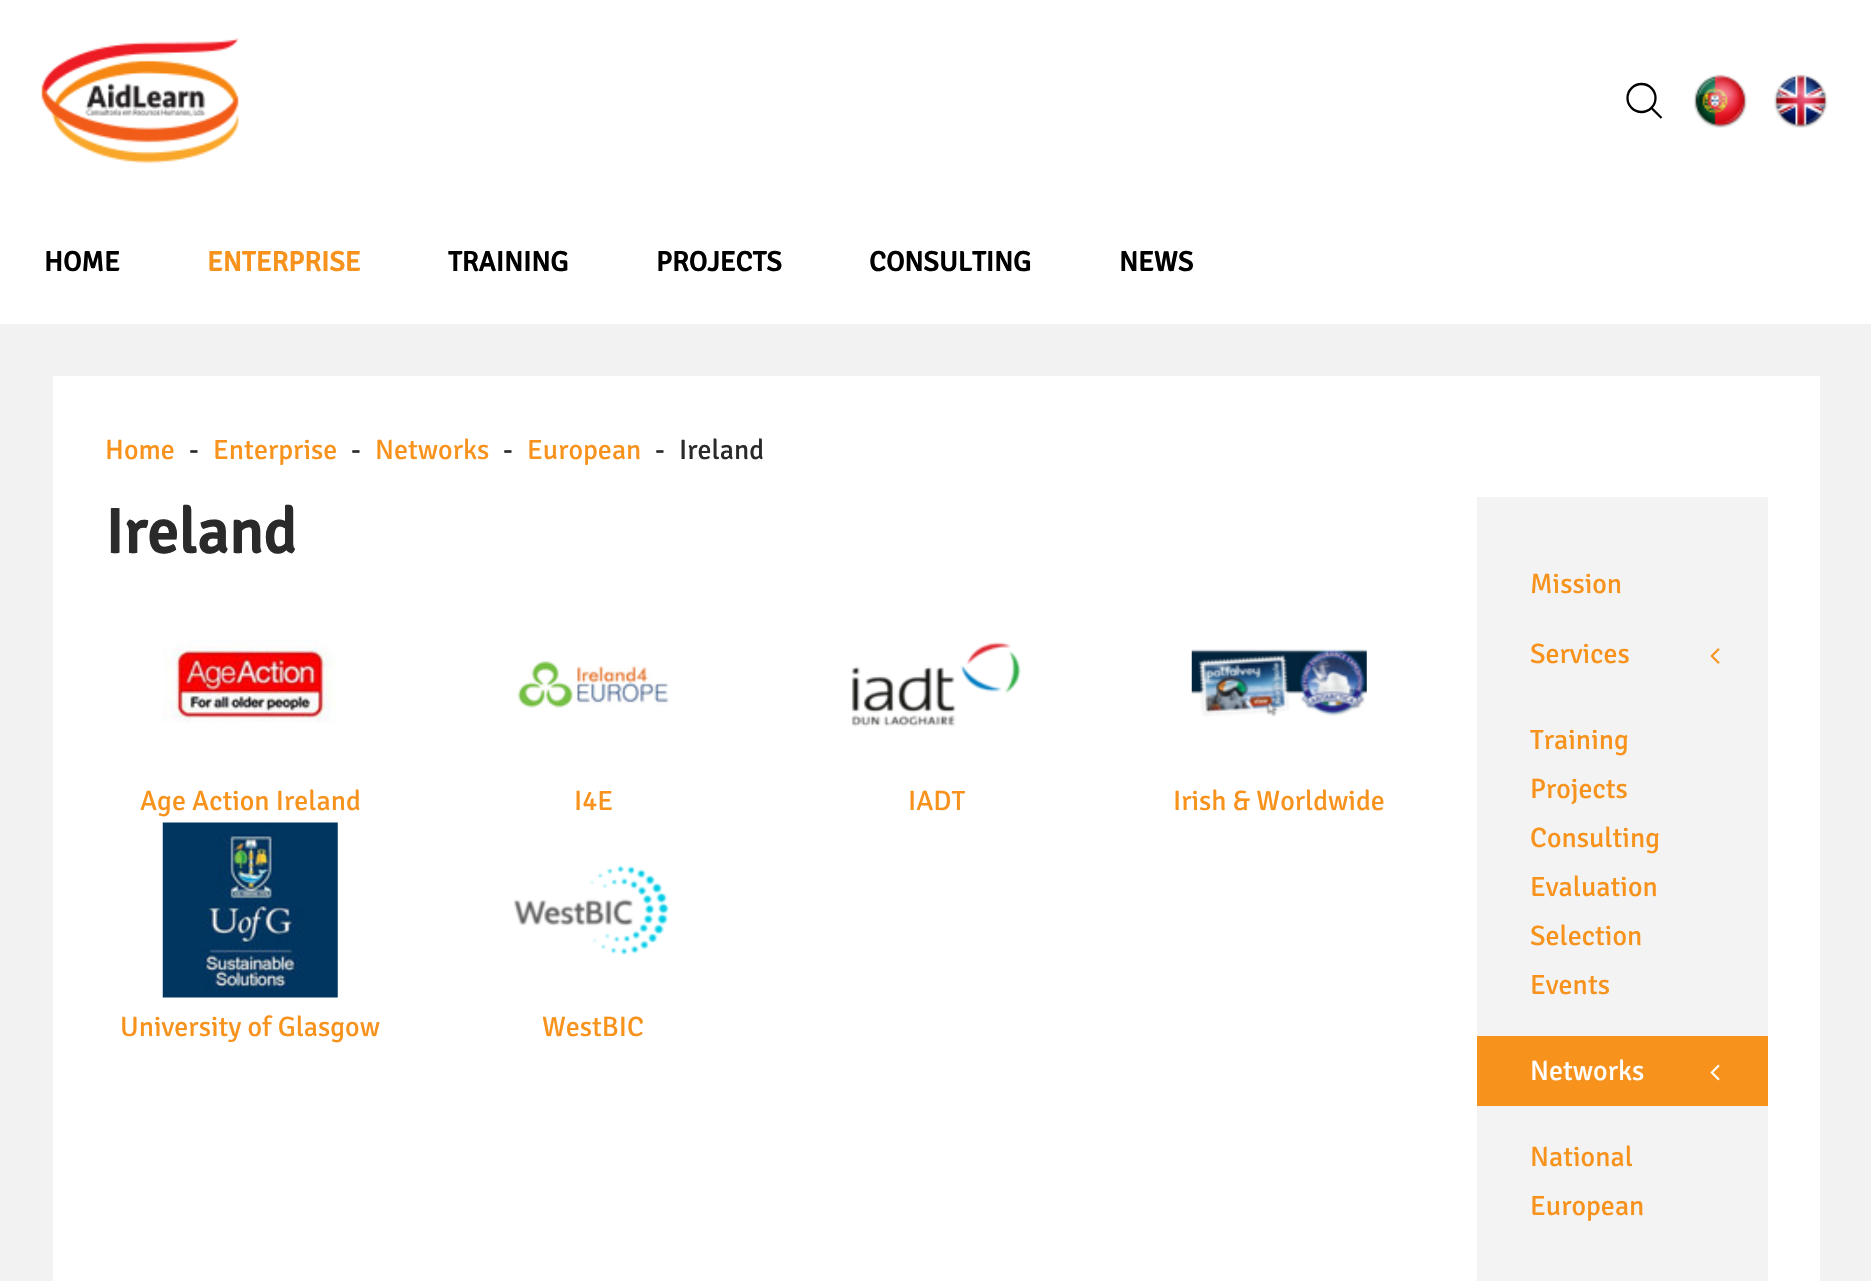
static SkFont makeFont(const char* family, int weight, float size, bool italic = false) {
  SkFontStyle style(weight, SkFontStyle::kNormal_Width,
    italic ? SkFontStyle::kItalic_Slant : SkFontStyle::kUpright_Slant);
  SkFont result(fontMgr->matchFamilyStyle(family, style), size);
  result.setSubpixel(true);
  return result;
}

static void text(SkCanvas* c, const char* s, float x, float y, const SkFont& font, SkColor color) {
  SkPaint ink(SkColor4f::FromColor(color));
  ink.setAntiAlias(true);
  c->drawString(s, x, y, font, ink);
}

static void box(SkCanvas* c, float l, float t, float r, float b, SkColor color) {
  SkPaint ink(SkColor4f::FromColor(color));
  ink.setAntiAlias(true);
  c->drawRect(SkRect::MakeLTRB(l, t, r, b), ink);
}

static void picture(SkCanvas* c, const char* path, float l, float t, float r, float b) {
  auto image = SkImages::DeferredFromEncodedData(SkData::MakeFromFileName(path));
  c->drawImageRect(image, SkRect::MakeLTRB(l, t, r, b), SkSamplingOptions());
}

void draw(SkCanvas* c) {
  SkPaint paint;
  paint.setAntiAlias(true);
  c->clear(0xfff2f2f2);
  box(c, 0, 0, 1871, 324, 0xffffffff);
  picture(c, "img_01.png", 40, 38, 240, 164);
  paint.setStyle(SkPaint::kStroke_Style);
  paint.setStrokeWidth(2.3f);
  paint.setColor(0xff000000);
  c->drawCircle(1641.5f, 98, 14, paint);
  c->drawPath(SkPathBuilder().moveTo(1651.5f, 108).lineTo(1661.5f, 118).detach(), paint);
  picture(c, "img_02.png", 1693, 74, 1747, 128);
  picture(c, "img_03.png", 1774, 74, 1828, 128);
  SkFont face1 = makeFont("Signika", 700, 28);
  text(c, "HOME", 44, 271, face1, 0xff000000);
  text(c, "ENTERPRISE", 207, 271, face1, 0xfff7931d);
  text(c, "TRAINING", 448, 271, face1, 0xff000000);
  text(c, "PROJECTS", 656, 271, face1, 0xff000000);
  text(c, "CONSULTING", 869, 271, face1, 0xff000000);
  text(c, "NEWS", 1119, 271, face1, 0xff000000);
  box(c, 53, 376, 1820, 1281, 0xffffffff);
  SkFont face2 = makeFont("Signika", 300, 28);
  text(c, "Home", 105, 459, face2, 0xfff7931d);
  text(c, "-", 189, 459, face2, 0xff2a2a2a);
  text(c, "Enterprise", 213, 459, face2, 0xfff7931d);
  text(c, "-", 351, 459, face2, 0xff2a2a2a);
  text(c, "Networks", 375, 459, face2, 0xfff7931d);
  text(c, "-", 503, 459, face2, 0xff2a2a2a);
  text(c, "European", 527, 459, face2, 0xfff7931d);
  text(c, "-", 655, 459, face2, 0xff2a2a2a);
  text(c, "Ireland", 679, 459, face2, 0xff2a2a2a);
  SkFont face3 = makeFont("Signika", 700, 63);
  text(c, "Ireland", 105, 553, face3, 0xff2a2a2a);
  picture(c, "img_04.png", 163, 639, 337, 723);
  text(c, "Age Action Ireland", 140, 810, face2, 0xfff7931d);
  picture(c, "img_05.png", 517, 661, 669, 708);
  text(c, "I4E", 574, 810, face2, 0xfff7931d);
  picture(c, "img_06.png", 851, 642, 1021, 727);
  text(c, "IADT", 908, 810, face2, 0xfff7931d);
  picture(c, "img_07.png", 1191, 649, 1367, 717);
  text(c, "Irish & Worldwide", 1173, 810, face2, 0xfff7931d);
  picture(c, "img_08.png", 162, 822, 338, 998);
  text(c, "University of Glasgow", 120, 1036, face2, 0xfff7931d);
  picture(c, "img_09.png", 514, 865, 669, 955);
  text(c, "WestBIC", 542, 1036, face2, 0xfff7931d);
  box(c, 1477, 497, 1768, 1281, 0xfff3f3f3);
  text(c, "Mission", 1530, 593, face2, 0xfff7931d);
  text(c, "Services", 1530, 663, face2, 0xfff7931d);
  picture(c, "img_10.png", 1710, 648, 1720, 664);
  text(c, "Training", 1530, 749, face2, 0xfff7931d);
  text(c, "Projects", 1530, 798, face2, 0xfff7931d);
  text(c, "Consulting", 1530, 847, face2, 0xfff7931d);
  text(c, "Evaluation", 1530, 896, face2, 0xfff7931d);
  text(c, "Selection", 1530, 945, face2, 0xfff7931d);
  text(c, "Events", 1530, 994, face2, 0xfff7931d);
  box(c, 1477, 1036, 1768, 1106, 0xfff7931d);
  text(c, "Networks", 1530, 1080, face2, 0xffffffff);
  picture(c, "img_11.png", 1710, 1064, 1720, 1081);
  text(c, "National", 1530, 1166, face2, 0xfff7931d);
  text(c, "European", 1530, 1215, face2, 0xfff7931d);
}
